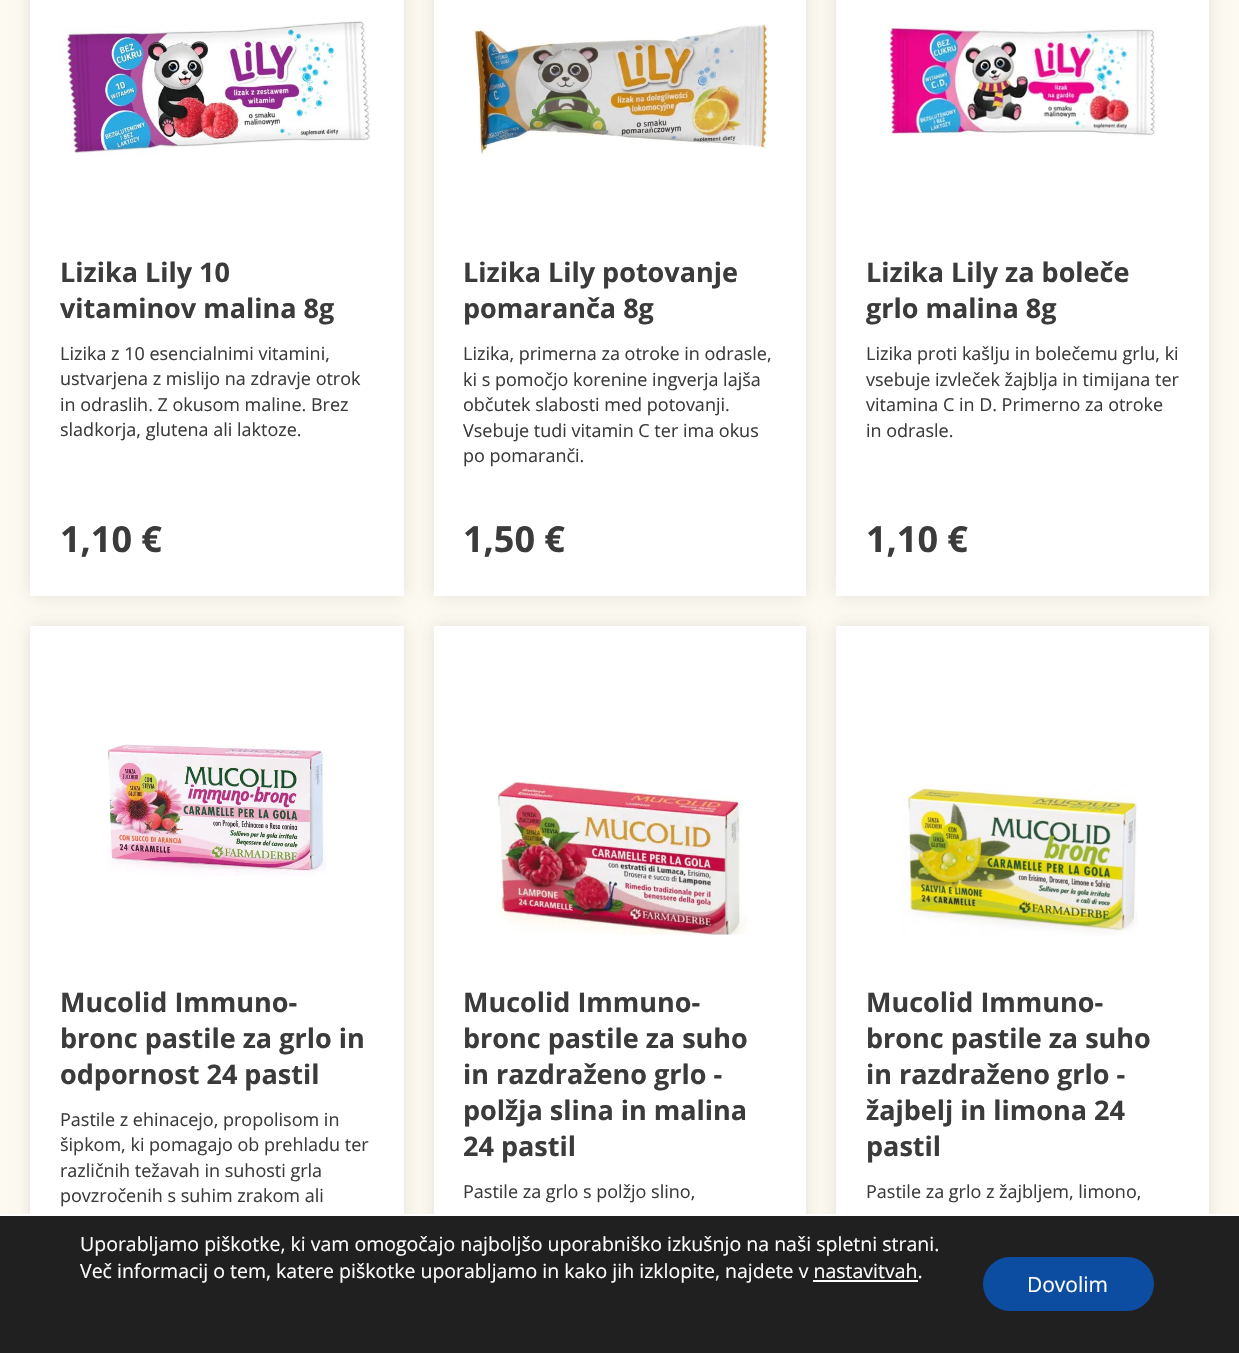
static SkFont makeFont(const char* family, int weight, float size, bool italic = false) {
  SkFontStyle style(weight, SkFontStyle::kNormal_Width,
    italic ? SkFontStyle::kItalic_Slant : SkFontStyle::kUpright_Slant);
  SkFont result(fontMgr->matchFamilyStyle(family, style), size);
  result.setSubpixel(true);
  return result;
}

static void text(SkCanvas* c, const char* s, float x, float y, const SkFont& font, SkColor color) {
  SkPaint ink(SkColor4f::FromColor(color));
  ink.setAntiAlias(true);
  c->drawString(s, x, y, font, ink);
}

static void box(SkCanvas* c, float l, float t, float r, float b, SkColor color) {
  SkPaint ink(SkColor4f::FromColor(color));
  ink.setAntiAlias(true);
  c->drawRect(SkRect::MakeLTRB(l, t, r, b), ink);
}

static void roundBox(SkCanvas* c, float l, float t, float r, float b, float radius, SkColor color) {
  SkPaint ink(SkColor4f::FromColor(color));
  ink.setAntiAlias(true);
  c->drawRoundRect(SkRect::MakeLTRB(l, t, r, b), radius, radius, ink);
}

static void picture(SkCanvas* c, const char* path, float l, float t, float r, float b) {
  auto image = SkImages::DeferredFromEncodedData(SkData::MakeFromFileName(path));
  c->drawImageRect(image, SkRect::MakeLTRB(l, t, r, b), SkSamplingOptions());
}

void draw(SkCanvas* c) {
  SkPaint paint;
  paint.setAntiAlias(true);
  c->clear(0xfffdfaf2);
  paint.setColor(0x1a000000);
  paint.setMaskFilter(SkMaskFilter::MakeBlur(kNormal_SkBlurStyle, 7.5f));
  c->drawRect(SkRect::MakeLTRB(30, -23, 404, 596), paint);
  paint.setMaskFilter(nullptr);
  box(c, 30, 0, 404, 596, 0xffffffff);
  picture(c, "img_01.png", 60, 21, 371, 156);
  SkFont face1 = makeFont("Open Sans", 700, 27);
  text(c, "Lizika Lily 10", 60, 282, face1, 0xff3b3b3b);
  text(c, "vitaminov malina 8g", 60, 318, face1, 0xff3b3b3b);
  SkFont face2 = makeFont("Open Sans", 400, 18);
  text(c, "Lizika z 10 esencialnimi vitamini,", 60, 360, face2, 0xff3b3b3b);
  text(c, "ustvarjena z mislijo na zdravje otrok", 60, 385, face2, 0xff3b3b3b);
  text(c, "in odraslih. Z okusom maline. Brez", 60, 411, face2, 0xff3b3b3b);
  text(c, "sladkorja, glutena ali laktoze.", 60, 436, face2, 0xff3b3b3b);
  SkFont face3 = makeFont("Open Sans", 700, 36);
  text(c, "1,10 €", 60, 552, face3, 0xff3b3b3b);
  paint.setMaskFilter(SkMaskFilter::MakeBlur(kNormal_SkBlurStyle, 7.5f));
  c->drawRect(SkRect::MakeLTRB(434, -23, 806, 596), paint);
  paint.setMaskFilter(nullptr);
  box(c, 434, 0, 806, 596, 0xffffffff);
  picture(c, "img_02.png", 473, 23, 769, 156);
  text(c, "Lizika Lily potovanje", 463, 282, face1, 0xff3b3b3b);
  text(c, "pomaranča 8g", 463, 318, face1, 0xff3b3b3b);
  text(c, "Lizika, primerna za otroke in odrasle,", 463, 360, face2, 0xff3b3b3b);
  text(c, "ki s pomočjo korenine ingverja lajša", 463, 386, face2, 0xff3b3b3b);
  text(c, "občutek slabosti med potovanji.", 463, 411, face2, 0xff3b3b3b);
  text(c, "Vsebuje tudi vitamin C ter ima okus", 463, 437, face2, 0xff3b3b3b);
  text(c, "po pomaranči.", 463, 462, face2, 0xff3b3b3b);
  text(c, "1,50 €", 463, 552, face3, 0xff3b3b3b);
  paint.setMaskFilter(SkMaskFilter::MakeBlur(kNormal_SkBlurStyle, 7.5f));
  c->drawRect(SkRect::MakeLTRB(836, -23, 1209, 596), paint);
  paint.setMaskFilter(nullptr);
  box(c, 836, 0, 1209, 596, 0xffffffff);
  picture(c, "img_03.png", 887, 25, 1156, 137);
  text(c, "Lizika Lily za boleče", 866, 282, face1, 0xff3b3b3b);
  text(c, "grlo malina 8g", 866, 318, face1, 0xff3b3b3b);
  text(c, "Lizika proti kašlju in bolečemu grlu, ki", 866, 360, face2, 0xff3b3b3b);
  text(c, "vsebuje izvleček žajblja in timijana ter", 866, 386, face2, 0xff3b3b3b);
  text(c, "vitamina C in D. Primerno za otroke", 866, 411, face2, 0xff3b3b3b);
  text(c, "in odrasle.", 866, 437, face2, 0xff3b3b3b);
  text(c, "1,10 €", 866, 552, face3, 0xff3b3b3b);
  paint.setMaskFilter(SkMaskFilter::MakeBlur(kNormal_SkBlurStyle, 7.5f));
  c->drawRect(SkRect::MakeLTRB(30, 626, 404, 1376), paint);
  paint.setMaskFilter(nullptr);
  box(c, 30, 626, 404, 1214, 0xffffffff);
  picture(c, "img_04.png", 107, 744, 326, 876);
  text(c, "Mucolid Immuno-", 60, 1012, face1, 0xff3b3b3b);
  text(c, "bronc pastile za grlo in", 60, 1048, face1, 0xff3b3b3b);
  text(c, "odpornost 24 pastil", 60, 1084, face1, 0xff3b3b3b);
  text(c, "Pastile z ehinacejo, propolisom in", 60, 1126, face2, 0xff3b3b3b);
  text(c, "šipkom, ki pomagajo ob prehladu ter", 60, 1151, face2, 0xff3b3b3b);
  text(c, "različnih težavah in suhosti grla", 60, 1177, face2, 0xff3b3b3b);
  text(c, "povzročenih s suhim zrakom ali", 60, 1202, face2, 0xff3b3b3b);
  paint.setMaskFilter(SkMaskFilter::MakeBlur(kNormal_SkBlurStyle, 7.5f));
  c->drawRect(SkRect::MakeLTRB(434, 626, 806, 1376), paint);
  paint.setMaskFilter(nullptr);
  box(c, 434, 626, 806, 1214, 0xffffffff);
  picture(c, "img_05.png", 496, 781, 749, 935);
  text(c, "Mucolid Immuno-", 463, 1012, face1, 0xff3b3b3b);
  text(c, "bronc pastile za suho", 463, 1048, face1, 0xff3b3b3b);
  text(c, "in razdraženo grlo -", 463, 1084, face1, 0xff3b3b3b);
  text(c, "polžja slina in malina", 463, 1120, face1, 0xff3b3b3b);
  text(c, "24 pastil", 463, 1156, face1, 0xff3b3b3b);
  text(c, "Pastile za grlo s polžjo slino,", 463, 1198, face2, 0xff3b3b3b);
  paint.setMaskFilter(SkMaskFilter::MakeBlur(kNormal_SkBlurStyle, 7.5f));
  c->drawRect(SkRect::MakeLTRB(836, 626, 1209, 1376), paint);
  paint.setMaskFilter(nullptr);
  box(c, 836, 626, 1209, 1214, 0xffffffff);
  picture(c, "img_06.png", 901, 783, 1138, 936);
  text(c, "Mucolid Immuno-", 866, 1012, face1, 0xff3b3b3b);
  text(c, "bronc pastile za suho", 866, 1048, face1, 0xff3b3b3b);
  text(c, "in razdraženo grlo -", 866, 1084, face1, 0xff3b3b3b);
  text(c, "žajbelj in limona 24", 866, 1120, face1, 0xff3b3b3b);
  text(c, "pastil", 866, 1156, face1, 0xff3b3b3b);
  text(c, "Pastile za grlo z žajbljem, limono,", 866, 1198, face2, 0xff3b3b3b);
  box(c, 0, 1216, 1239, 1353, 0xff202020);
  box(c, 0, 1214, 1239, 1216, 0xffffffff);
  SkFont face4 = makeFont("Open Sans", 400, 19.5f);
  text(c, "Uporabljamo piškotke, ki vam omogočajo najboljšo uporabniško izkušnjo na naši spletni strani.", 80, 1251, face4, 0xffffffff);
  text(c, "Več informacij o tem, katere piškotke uporabljamo in kako jih izklopite, najdete v nastavitvah.", 80, 1278, face4, 0xffffffff);
  box(c, 813, 1280, 918, 1282, 0xffffffff);
  roundBox(c, 983, 1257, 1154, 1311, 27, 0xff0c4da2);
  SkFont face5 = makeFont("Open Sans", 400, 21);
  text(c, "Dovolim", 1027, 1292, face5, 0xffffffff);
}
